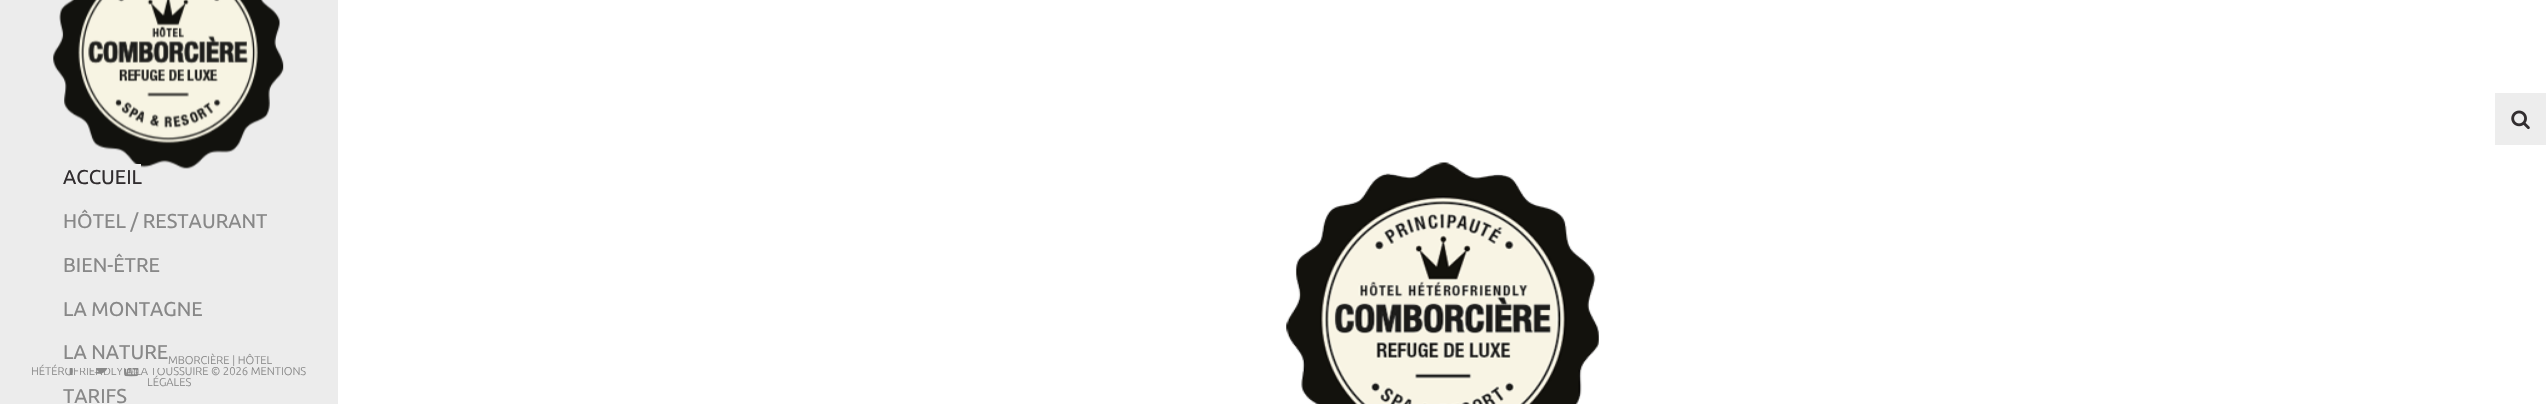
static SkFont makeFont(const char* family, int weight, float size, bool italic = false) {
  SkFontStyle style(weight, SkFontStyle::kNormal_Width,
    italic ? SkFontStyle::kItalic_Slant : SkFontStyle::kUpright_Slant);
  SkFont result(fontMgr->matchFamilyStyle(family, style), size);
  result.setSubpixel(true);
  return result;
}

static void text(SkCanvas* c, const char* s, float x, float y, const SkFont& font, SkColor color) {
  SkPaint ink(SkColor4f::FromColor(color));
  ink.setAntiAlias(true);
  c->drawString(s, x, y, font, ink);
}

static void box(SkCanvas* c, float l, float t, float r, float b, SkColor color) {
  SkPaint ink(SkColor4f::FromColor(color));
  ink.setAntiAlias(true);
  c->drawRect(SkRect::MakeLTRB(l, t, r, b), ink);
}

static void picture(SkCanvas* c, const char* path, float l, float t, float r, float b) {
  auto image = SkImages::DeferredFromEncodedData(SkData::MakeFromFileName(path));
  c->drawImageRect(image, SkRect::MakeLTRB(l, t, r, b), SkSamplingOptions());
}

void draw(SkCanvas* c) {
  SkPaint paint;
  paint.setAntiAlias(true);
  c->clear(0xffffffff);
  box(c, 2495, 93, 2546, 145, 0xffededed);
  picture(c, "img_01.png", 2511, 110, 2530, 130);
  box(c, 0, 0, 338, 404, 0xffececec);
  picture(c, "img_02.png", 53, 0, 284, 169);
  box(c, 134, 164, 141, 168, 0xffececec);
  SkFont face1 = makeFont("Ubuntu", 400, 20);
  text(c, "ACCUEIL", 63, 184, face1, 0xff312d2f);
  text(c, "HÔTEL / RESTAURANT", 63, 228, face1, 0xff888888);
  text(c, "BIEN-ÊTRE", 63, 272, face1, 0xff888888);
  text(c, "LA MONTAGNE", 63, 316, face1, 0xff888888);
  picture(c, "img_03.png", 69, 368, 73, 375);
  picture(c, "img_04.png", 94, 368, 108, 374);
  picture(c, "img_05.png", 124, 368, 139, 377);
  SkFont face2 = makeFont("Ubuntu", 300, 11.25f);
  text(c, "HÉTÉROFRIENDLY À LA TOUSSUIRE © 2026 MENTIONS", 31, 375, face2, 0xff888888);
  box(c, 66, 364, 168, 368, 0xffececec);
  text(c, "LA NATURE", 63, 359, face1, 0xff888888);
  text(c, "TARIFS", 63, 403, face1, 0xff888888);
  text(c, "MBORCIÈRE | HÔTEL", 168, 364, face2, 0xff888888);
  text(c, "LÉGALES", 147, 386, face2, 0xff888888);
  picture(c, "img_06.png", 1286, 162, 1599, 404);
}
